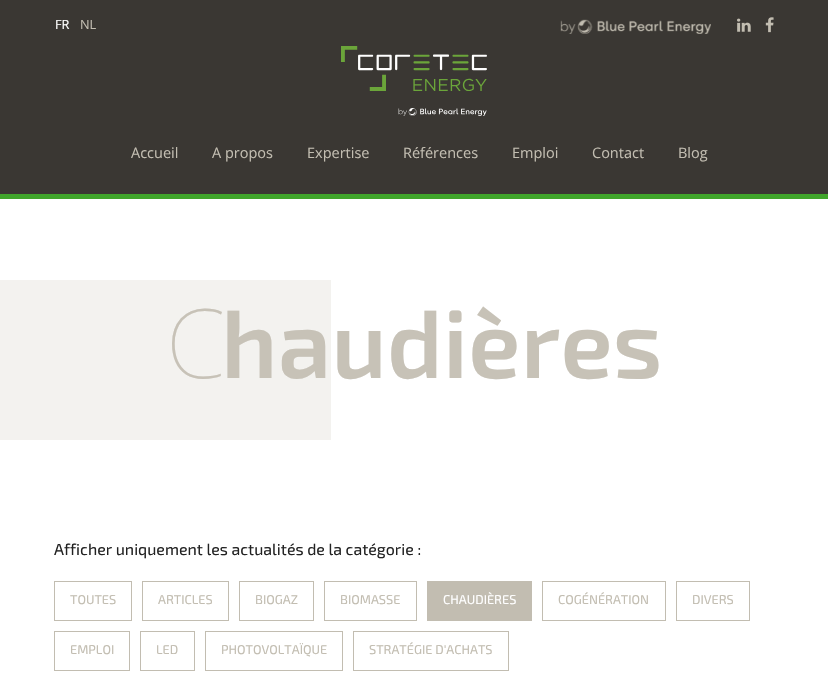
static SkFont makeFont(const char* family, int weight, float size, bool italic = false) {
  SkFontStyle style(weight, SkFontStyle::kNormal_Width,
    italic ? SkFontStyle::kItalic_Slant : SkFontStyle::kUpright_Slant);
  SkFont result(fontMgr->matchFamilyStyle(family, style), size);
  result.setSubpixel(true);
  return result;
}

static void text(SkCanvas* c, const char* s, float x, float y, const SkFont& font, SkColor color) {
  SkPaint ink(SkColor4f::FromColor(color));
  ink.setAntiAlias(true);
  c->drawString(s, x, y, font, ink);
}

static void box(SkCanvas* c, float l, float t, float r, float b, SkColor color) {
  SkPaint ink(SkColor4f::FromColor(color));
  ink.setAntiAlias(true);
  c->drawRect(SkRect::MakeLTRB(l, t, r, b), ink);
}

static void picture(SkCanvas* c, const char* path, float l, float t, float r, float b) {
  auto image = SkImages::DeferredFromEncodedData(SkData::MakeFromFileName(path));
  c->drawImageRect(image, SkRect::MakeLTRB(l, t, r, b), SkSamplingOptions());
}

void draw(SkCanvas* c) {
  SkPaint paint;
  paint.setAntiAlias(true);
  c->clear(0xffffffff);
  box(c, 0, 0, 828, 194, 0xff3a3733);
  box(c, 0, 194, 828, 199, 0xff40a52b);
  SkFont face1 = makeFont("Open Sans", 400, 12.75f);
  text(c, "FR", 55, 29, face1, 0xffffffff);
  text(c, "NL", 80, 29, face1, 0xffc2bdb1);
  picture(c, "img_01.png", 560, 19, 711, 34);
  picture(c, "img_02.png", 737, 18, 751, 32);
  picture(c, "img_03.png", 765, 17, 774, 33);
  picture(c, "img_04.png", 341, 46, 487, 116);
  SkFont face2 = makeFont("Open Sans", 400, 14.5f);
  text(c, "Accueil", 131, 158, face2, 0xffc2bdb1);
  text(c, "A propos", 212, 158, face2, 0xffc2bdb1);
  text(c, "Expertise", 307, 158, face2, 0xffc2bdb1);
  text(c, "Références", 403, 158, face2, 0xffc2bdb1);
  text(c, "Emploi", 512, 158, face2, 0xffc2bdb1);
  text(c, "Contact", 592, 158, face2, 0xffc2bdb1);
  text(c, "Blog", 678, 158, face2, 0xffc2bdb1);
  box(c, 0, 280, 331, 440, 0xfff3f2ef);
  SkFont face3 = makeFont("Noto Sans", 100, 96);
  text(c, "C", 166, 378, face3, 0xffc7c2b7);
  SkFont face4 = makeFont("Exo 2", 600, 96);
  text(c, "haudières", 221, 378, face4, 0xffc7c2b7);
  SkFont face5 = makeFont("Exo 2", 400, 16);
  text(c, "Afficher uniquement les actualités de la catégorie :", 54, 555, face5, 0xff222222);
  paint.setStyle(SkPaint::kStroke_Style);
  paint.setStrokeWidth(1);
  paint.setColor(0xffc2bdb1);
  c->drawRect(SkRect::MakeLTRB(54.5f, 581.5f, 131.5f, 620.5f), paint);
  SkFont face6 = makeFont("Exo 2", 400, 12.75f);
  text(c, "TOUTES", 70, 604, face6, 0xffc2bdb1);
  c->drawRect(SkRect::MakeLTRB(142.5f, 581.5f, 228.5f, 620.5f), paint);
  text(c, "ARTICLES", 158, 604, face6, 0xffc2bdb1);
  c->drawRect(SkRect::MakeLTRB(239.5f, 581.5f, 313.5f, 620.5f), paint);
  text(c, "BIOGAZ", 255, 604, face6, 0xffc2bdb1);
  c->drawRect(SkRect::MakeLTRB(324.5f, 581.5f, 416.5f, 620.5f), paint);
  text(c, "BIOMASSE", 340, 604, face6, 0xffc2bdb1);
  c->drawRect(SkRect::MakeLTRB(427.5f, 581.5f, 531.5f, 620.5f), paint);
  box(c, 428, 582, 531, 620, 0xffc2bdb1);
  text(c, "CHAUDIÈRES", 443, 604, face6, 0xffffffff);
  c->drawRect(SkRect::MakeLTRB(542.5f, 581.5f, 665.5f, 620.5f), paint);
  text(c, "COGÉNÉRATION", 558, 604, face6, 0xffc2bdb1);
  c->drawRect(SkRect::MakeLTRB(676.5f, 581.5f, 749.5f, 620.5f), paint);
  text(c, "DIVERS", 692, 604, face6, 0xffc2bdb1);
  c->drawRect(SkRect::MakeLTRB(54.5f, 631.5f, 129.5f, 670.5f), paint);
  text(c, "EMPLOI", 70, 654, face6, 0xffc2bdb1);
  c->drawRect(SkRect::MakeLTRB(140.5f, 631.5f, 194.5f, 670.5f), paint);
  text(c, "LED", 156, 654, face6, 0xffc2bdb1);
  c->drawRect(SkRect::MakeLTRB(205.5f, 631.5f, 342.5f, 670.5f), paint);
  text(c, "PHOTOVOLTAÏQUE", 221, 654, face6, 0xffc2bdb1);
  c->drawRect(SkRect::MakeLTRB(353.5f, 631.5f, 508.5f, 670.5f), paint);
  text(c, "STRATÉGIE D'ACHATS", 369, 654, face6, 0xffc2bdb1);
}
